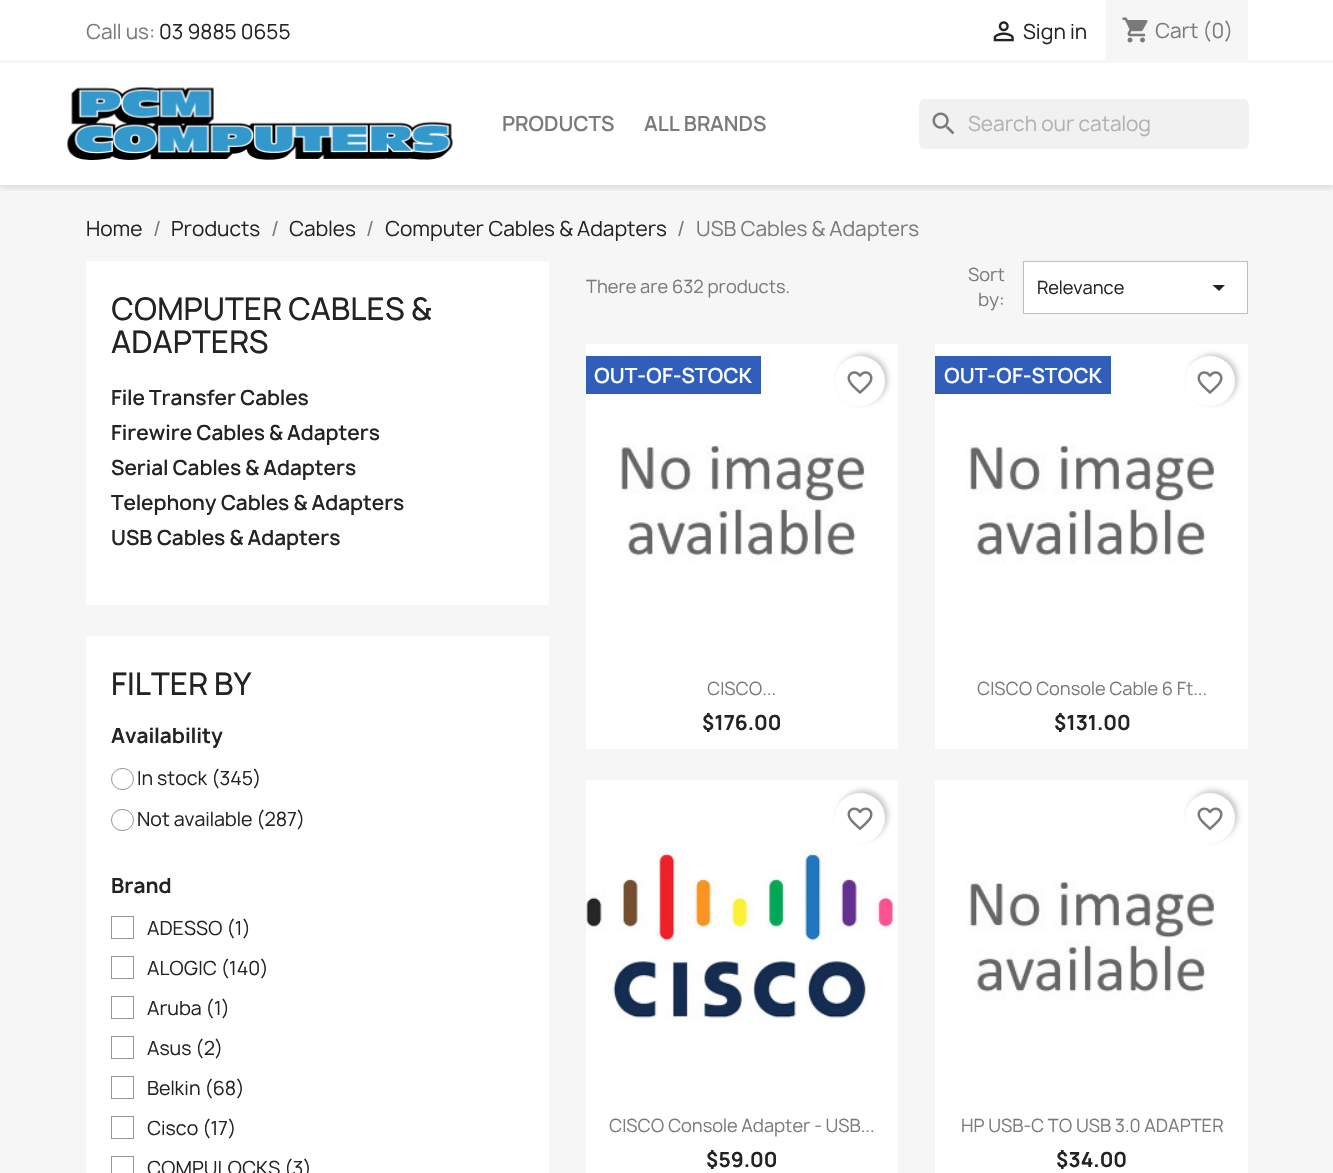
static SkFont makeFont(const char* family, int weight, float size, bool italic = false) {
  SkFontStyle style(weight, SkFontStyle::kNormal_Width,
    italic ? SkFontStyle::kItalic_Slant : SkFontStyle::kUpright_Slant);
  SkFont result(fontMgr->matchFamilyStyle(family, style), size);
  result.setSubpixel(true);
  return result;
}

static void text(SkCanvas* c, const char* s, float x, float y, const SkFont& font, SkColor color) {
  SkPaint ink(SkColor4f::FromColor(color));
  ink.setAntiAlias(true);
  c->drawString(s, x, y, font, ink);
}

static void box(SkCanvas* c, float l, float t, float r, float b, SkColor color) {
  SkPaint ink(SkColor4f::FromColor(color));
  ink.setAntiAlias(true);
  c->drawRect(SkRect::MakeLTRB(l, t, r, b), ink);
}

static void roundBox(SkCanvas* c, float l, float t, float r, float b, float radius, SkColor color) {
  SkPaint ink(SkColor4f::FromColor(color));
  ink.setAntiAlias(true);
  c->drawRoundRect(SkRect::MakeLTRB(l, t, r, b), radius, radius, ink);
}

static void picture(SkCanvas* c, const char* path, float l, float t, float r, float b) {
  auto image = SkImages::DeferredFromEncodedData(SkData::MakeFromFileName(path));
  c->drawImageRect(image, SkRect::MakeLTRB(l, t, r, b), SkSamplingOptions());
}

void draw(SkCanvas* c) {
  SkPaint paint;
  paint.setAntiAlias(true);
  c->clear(0xffffffff);
  box(c, 0, 185, 1333, 1173, 0xfff6f6f6);
  c->save();
  c->clipRect(SkRect::MakeLTRB(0, 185, 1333, 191));
  paint.setColor(0x1c000000);
  paint.setMaskFilter(SkMaskFilter::MakeBlur(kNormal_SkBlurStyle, 3));
  c->drawRect(SkRect::MakeLTRB(0, 3, 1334, 188), paint);
  paint.setMaskFilter(nullptr);
  c->restore();
  box(c, 0, 60, 1333, 63, 0xfff6f6f6);
  SkFont face1 = makeFont("Manrope", 400, 20);
  text(c, "Call us:", 86, 39, face1, 0xff7a7a7a);
  text(c, "03 9885 0655", 159, 39, face1, 0xff232323);
  picture(c, "img_01.png", 993, 21, 1014, 42);
  text(c, "Sign in", 1023, 39, face1, 0xff232323);
  box(c, 1106, 0, 1248, 60, 0xfff6f6f6);
  picture(c, "img_02.png", 1122, 17, 1148, 43);
  text(c, "Cart (0)", 1155, 38, face1, 0xff7a7a7a);
  picture(c, "img_03.png", 67, 87, 453, 160);
  SkFont face2 = makeFont("Manrope", 600, 20);
  text(c, "PRODUCTS", 502, 131, face2, 0xff7a7a7a);
  text(c, "ALL BRANDS", 644, 131, face2, 0xff7a7a7a);
  roundBox(c, 919, 99, 1249, 149, 6, 0xfff1f1f1);
  picture(c, "img_04.png", 932, 112, 955, 135);
  text(c, "Search our catalog", 968, 131, face1, 0xffb1b1b1);
  text(c, "Home", 86, 236, face1, 0xff232323);
  text(c, "/", 153, 236, face1, 0xff7a7a7a);
  text(c, "Products", 171, 236, face1, 0xff232323);
  text(c, "/", 271, 236, face1, 0xff7a7a7a);
  text(c, "Cables", 289, 236, face1, 0xff232323);
  text(c, "/", 366, 236, face1, 0xff7a7a7a);
  text(c, "Computer Cables & Adapters", 385, 236, face1, 0xff232323);
  text(c, "/", 677, 236, face1, 0xff7a7a7a);
  text(c, "USB Cables & Adapters", 696, 236, face1, 0xff7a7a7a);
  box(c, 86, 261, 549, 605, 0xffffffff);
  SkFont face3 = makeFont("Manrope", 500, 30);
  text(c, "COMPUTER CABLES &", 111, 320, face3, 0xff232323);
  text(c, "ADAPTERS", 111, 353, face3, 0xff232323);
  text(c, "File Transfer Cables", 111, 405, face2, 0xff232323);
  text(c, "Firewire Cables & Adapters", 111, 440, face2, 0xff232323);
  text(c, "Serial Cables & Adapters", 111, 475, face2, 0xff232323);
  text(c, "Telephony Cables & Adapters", 111, 510, face2, 0xff232323);
  text(c, "USB Cables & Adapters", 111, 545, face2, 0xff232323);
  box(c, 86, 636, 549, 1173, 0xffffffff);
  text(c, "FILTER BY", 111, 695, face3, 0xff232323);
  SkFont face4 = makeFont("Manrope", 700, 20);
  text(c, "Availability", 111, 743, face4, 0xff232323);
  paint.setStyle(SkPaint::kStroke_Style);
  paint.setStrokeWidth(1);
  paint.setColor(0xff979797);
  c->drawRoundRect(SkRect::MakeLTRB(111.5f, 768.5f, 133.5f, 789.5f), 10.5f, 10.5f, paint);
  SkFont face5 = makeFont("Manrope", 400, 18.75f);
  text(c, "In stock (345)", 137, 785, face5, 0xff232323);
  c->drawRoundRect(SkRect::MakeLTRB(111.5f, 809.5f, 133.5f, 830.5f), 10.5f, 10.5f, paint);
  text(c, "Not available (287)", 137, 826, face5, 0xff232323);
  text(c, "Brand", 111, 893, face4, 0xff232323);
  c->drawRect(SkRect::MakeLTRB(111.5f, 916.5f, 133.5f, 938.5f), paint);
  text(c, "ADESSO (1)", 147, 935, face5, 0xff232323);
  c->drawRect(SkRect::MakeLTRB(111.5f, 956.5f, 133.5f, 978.5f), paint);
  text(c, "ALOGIC (140)", 147, 975, face5, 0xff232323);
  c->drawRect(SkRect::MakeLTRB(111.5f, 996.5f, 133.5f, 1018.5f), paint);
  text(c, "Aruba (1)", 147, 1015, face5, 0xff232323);
  c->drawRect(SkRect::MakeLTRB(111.5f, 1036.5f, 133.5f, 1058.5f), paint);
  text(c, "Asus (2)", 147, 1055, face5, 0xff232323);
  c->drawRect(SkRect::MakeLTRB(111.5f, 1076.5f, 133.5f, 1098.5f), paint);
  text(c, "Belkin (68)", 147, 1095, face5, 0xff232323);
  c->drawRect(SkRect::MakeLTRB(111.5f, 1116.5f, 133.5f, 1138.5f), paint);
  text(c, "Cisco (17)", 147, 1135, face5, 0xff232323);
  c->drawRect(SkRect::MakeLTRB(111.5f, 1156.5f, 133.5f, 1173.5f), paint);
  text(c, "COMPULOCKS (3)", 147, 1175, face5, 0xff232323);
  SkFont face6 = makeFont("Manrope", 400, 17.5f);
  text(c, "There are 632 products.", 586, 293, face6, 0xff7a7a7a);
  text(c, "Sort", 968, 281, face6, 0xff7a7a7a);
  text(c, "by:", 978, 306, face6, 0xff7a7a7a);
  paint.setStyle(SkPaint::kFill_Style);
  paint.setColor(0xffffffff);
  c->drawRect(SkRect::MakeLTRB(1023.5f, 261.5f, 1247.5f, 313.5f), paint);
  paint.setStyle(SkPaint::kStroke_Style);
  paint.setColor(0xffbfbfbf);
  c->drawRect(SkRect::MakeLTRB(1023.5f, 261.5f, 1247.5f, 313.5f), paint);
  text(c, "Relevance", 1037, 294, face6, 0xff232323);
  paint.setStyle(SkPaint::kFill_Style);
  paint.setColor(0xff232323);
  c->drawPath(SkPathBuilder().moveTo(1212.5f, 285).lineTo(1225, 285).lineTo(1219, 291).close().detach(), paint);
  box(c, 586, 344, 898, 749, 0xffffffff);
  box(c, 586, 356, 761, 394, 0xff315ebb);
  text(c, "OUT-OF-STOCK", 594, 383, face2, 0xffffffff);
  paint.setColor(0x33000000);
  paint.setMaskFilter(SkMaskFilter::MakeBlur(kNormal_SkBlurStyle, 2.5f));
  c->drawRoundRect(SkRect::MakeLTRB(838, 354, 888, 404), 25, 25, paint);
  paint.setMaskFilter(nullptr);
  paint.setColor(0xffffffff);
  c->drawCircle(860, 381, 25, paint);
  picture(c, "img_05.png", 847, 371, 873, 394);
  picture(c, "img_06.png", 619, 444, 865, 561);
  text(c, "CISCO...", 707, 695, face6, 0xff7a7a7a);
  text(c, "$176.00", 702, 730, face4, 0xff232323);
  box(c, 935, 344, 1248, 749, 0xffffffff);
  box(c, 935, 356, 1111, 394, 0xff315ebb);
  text(c, "OUT-OF-STOCK", 944, 383, face2, 0xffffffff);
  paint.setColor(0x33000000);
  paint.setMaskFilter(SkMaskFilter::MakeBlur(kNormal_SkBlurStyle, 2.5f));
  c->drawRoundRect(SkRect::MakeLTRB(1188, 354, 1238, 404), 25, 25, paint);
  paint.setMaskFilter(nullptr);
  paint.setColor(0xffffffff);
  c->drawCircle(1210, 381, 25, paint);
  picture(c, "img_05.png", 1197, 371, 1223, 394);
  picture(c, "img_07.png", 965, 444, 1215, 564);
  text(c, "CISCO Console Cable 6 Ft...", 977, 695, face6, 0xff7a7a7a);
  text(c, "$131.00", 1054, 730, face4, 0xff232323);
  box(c, 586, 780, 898, 1173, 0xffffffff);
  paint.setColor(0x33000000);
  paint.setMaskFilter(SkMaskFilter::MakeBlur(kNormal_SkBlurStyle, 2.5f));
  c->drawRoundRect(SkRect::MakeLTRB(838, 790, 888, 840), 25, 25, paint);
  paint.setMaskFilter(nullptr);
  paint.setColor(0xffffffff);
  c->drawCircle(860, 818, 25, paint);
  picture(c, "img_08.png", 847, 807, 873, 831);
  picture(c, "img_09.png", 586, 850, 895, 1020);
  text(c, "CISCO Console Adapter - USB...", 609, 1132, face6, 0xff7a7a7a);
  text(c, "$59.00", 706, 1167, face4, 0xff232323);
  box(c, 935, 780, 1248, 1173, 0xffffffff);
  paint.setColor(0x33000000);
  paint.setMaskFilter(SkMaskFilter::MakeBlur(kNormal_SkBlurStyle, 2.5f));
  c->drawRoundRect(SkRect::MakeLTRB(1188, 790, 1238, 840), 25, 25, paint);
  paint.setMaskFilter(nullptr);
  paint.setColor(0xffffffff);
  c->drawCircle(1210, 818, 25, paint);
  picture(c, "img_08.png", 1197, 807, 1223, 831);
  picture(c, "img_10.png", 965, 880, 1215, 1000);
  text(c, "HP USB-C TO USB 3.0 ADAPTER", 961, 1132, face6, 0xff7a7a7a);
  text(c, "$34.00", 1056, 1167, face4, 0xff232323);
}
